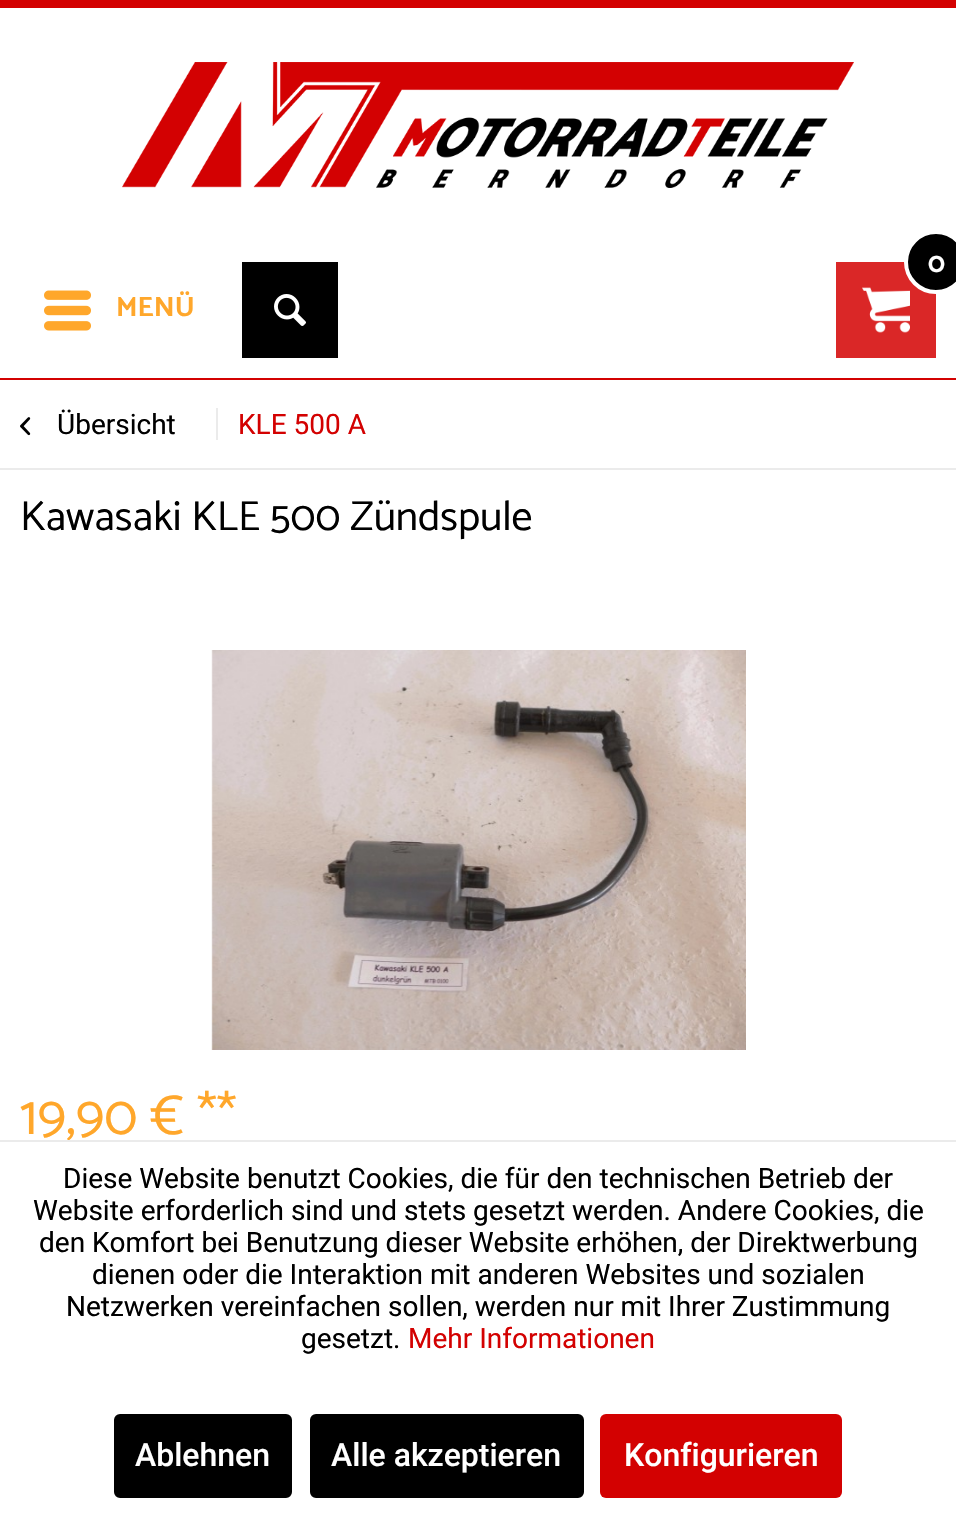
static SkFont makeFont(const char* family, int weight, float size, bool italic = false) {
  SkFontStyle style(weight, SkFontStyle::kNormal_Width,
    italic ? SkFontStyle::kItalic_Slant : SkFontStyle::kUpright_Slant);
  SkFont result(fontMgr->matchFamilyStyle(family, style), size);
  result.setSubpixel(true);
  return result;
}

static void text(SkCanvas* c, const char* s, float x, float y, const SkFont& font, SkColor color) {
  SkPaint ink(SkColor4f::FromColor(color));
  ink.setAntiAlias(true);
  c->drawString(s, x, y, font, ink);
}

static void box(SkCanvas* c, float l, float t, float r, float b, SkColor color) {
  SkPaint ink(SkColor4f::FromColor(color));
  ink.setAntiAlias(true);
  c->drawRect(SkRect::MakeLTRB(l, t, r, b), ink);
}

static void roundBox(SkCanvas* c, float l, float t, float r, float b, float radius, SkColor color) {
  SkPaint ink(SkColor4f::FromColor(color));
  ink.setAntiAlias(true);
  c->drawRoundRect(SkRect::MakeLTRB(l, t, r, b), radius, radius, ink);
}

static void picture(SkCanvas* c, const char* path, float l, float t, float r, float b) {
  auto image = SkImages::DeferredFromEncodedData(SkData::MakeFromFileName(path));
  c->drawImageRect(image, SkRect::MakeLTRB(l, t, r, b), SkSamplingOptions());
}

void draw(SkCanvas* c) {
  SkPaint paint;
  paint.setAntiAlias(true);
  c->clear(0xffffffff);
  box(c, 0, 0, 956, 8, 0xffd30101);
  box(c, 0, 378, 956, 380, 0xffd30101);
  picture(c, "img_01.png", 122, 62, 854, 188);
  picture(c, "img_02.png", 44, 290, 91, 331);
  SkFont face1 = makeFont("Catamaran", 700, 28);
  text(c, "MENÜ", 116, 316, face1, 0xffffa72b);
  paint.setColor(0xff000000);
  c->drawRect(SkRect::MakeLTRB(243, 263, 337, 357), paint);
  paint.setStyle(SkPaint::kStroke_Style);
  paint.setStrokeWidth(2);
  c->drawRect(SkRect::MakeLTRB(243, 263, 337, 357), paint);
  picture(c, "img_03.png", 274, 294, 306, 326);
  box(c, 836, 262, 936, 358, 0xffda2727);
  picture(c, "img_04.png", 862, 287, 910, 333);
  paint.setStyle(SkPaint::kFill_Style);
  c->drawCircle(936, 262, 30, paint);
  paint.setStyle(SkPaint::kStroke_Style);
  paint.setStrokeWidth(4);
  paint.setColor(0xffffffff);
  c->drawCircle(936, 262, 30, paint);
  text(c, "0", 928, 272, face1, 0xffffffff);
  box(c, 0, 468, 956, 470, 0xffebebeb);
  picture(c, "img_05.png", 20, 417, 31, 436);
  SkFont face2 = makeFont("Roboto", 400, 28);
  text(c, "Übersicht", 57, 434, face2, 0xff000000);
  box(c, 216, 408, 218, 440, 0xffebebeb);
  text(c, "KLE 500 A", 238, 434, face2, 0xffd30101);
  SkFont face3 = makeFont("Catamaran", 400, 42);
  text(c, "Kawasaki KLE 500 Zündspule", 20, 530, face3, 0xff000000);
  picture(c, "img_06.png", 211, 650, 746, 1050);
  SkFont face4 = makeFont("Catamaran", 400, 56);
  text(c, "19,90 € **", 20, 1134, face4, 0xffffa72b);
  box(c, 0, 1140, 956, 1142, 0xffebebeb);
  text(c, "Diese Website benutzt Cookies, die für den technischen Betrieb der", 63, 1188, face2, 0xff000000);
  text(c, "Website erforderlich sind und stets gesetzt werden. Andere Cookies, die", 33, 1220, face2, 0xff000000);
  text(c, "den Komfort bei Benutzung dieser Website erhöhen, der Direktwerbung", 39, 1252, face2, 0xff000000);
  text(c, "dienen oder die Interaktion mit anderen Websites und sozialen", 92, 1284, face2, 0xff000000);
  text(c, "Netzwerken vereinfachen sollen, werden nur mit Ihrer Zustimmung", 66, 1316, face2, 0xff000000);
  text(c, "gesetzt.", 301, 1348, face2, 0xff000000);
  text(c, "Mehr Informationen", 408, 1348, face2, 0xffd30101);
  paint.setStyle(SkPaint::kFill_Style);
  paint.setColor(0xff000000);
  c->drawRoundRect(SkRect::MakeLTRB(115, 1415, 291, 1497), 5, 5, paint);
  paint.setStyle(SkPaint::kStroke_Style);
  paint.setStrokeWidth(2);
  c->drawRoundRect(SkRect::MakeLTRB(115, 1415, 291, 1497), 5, 5, paint);
  SkFont face5 = makeFont("Roboto", 500, 32);
  text(c, "Ablehnen", 135, 1466, face5, 0xffffffff);
  paint.setStyle(SkPaint::kFill_Style);
  c->drawRoundRect(SkRect::MakeLTRB(311, 1415, 583, 1497), 5, 5, paint);
  paint.setStyle(SkPaint::kStroke_Style);
  c->drawRoundRect(SkRect::MakeLTRB(311, 1415, 583, 1497), 5, 5, paint);
  text(c, "Alle akzeptieren", 331, 1466, face5, 0xffffffff);
  roundBox(c, 600, 1414, 842, 1498, 6, 0xffd30101);
  text(c, "Konfigurieren", 624, 1466, face5, 0xffffffff);
}
